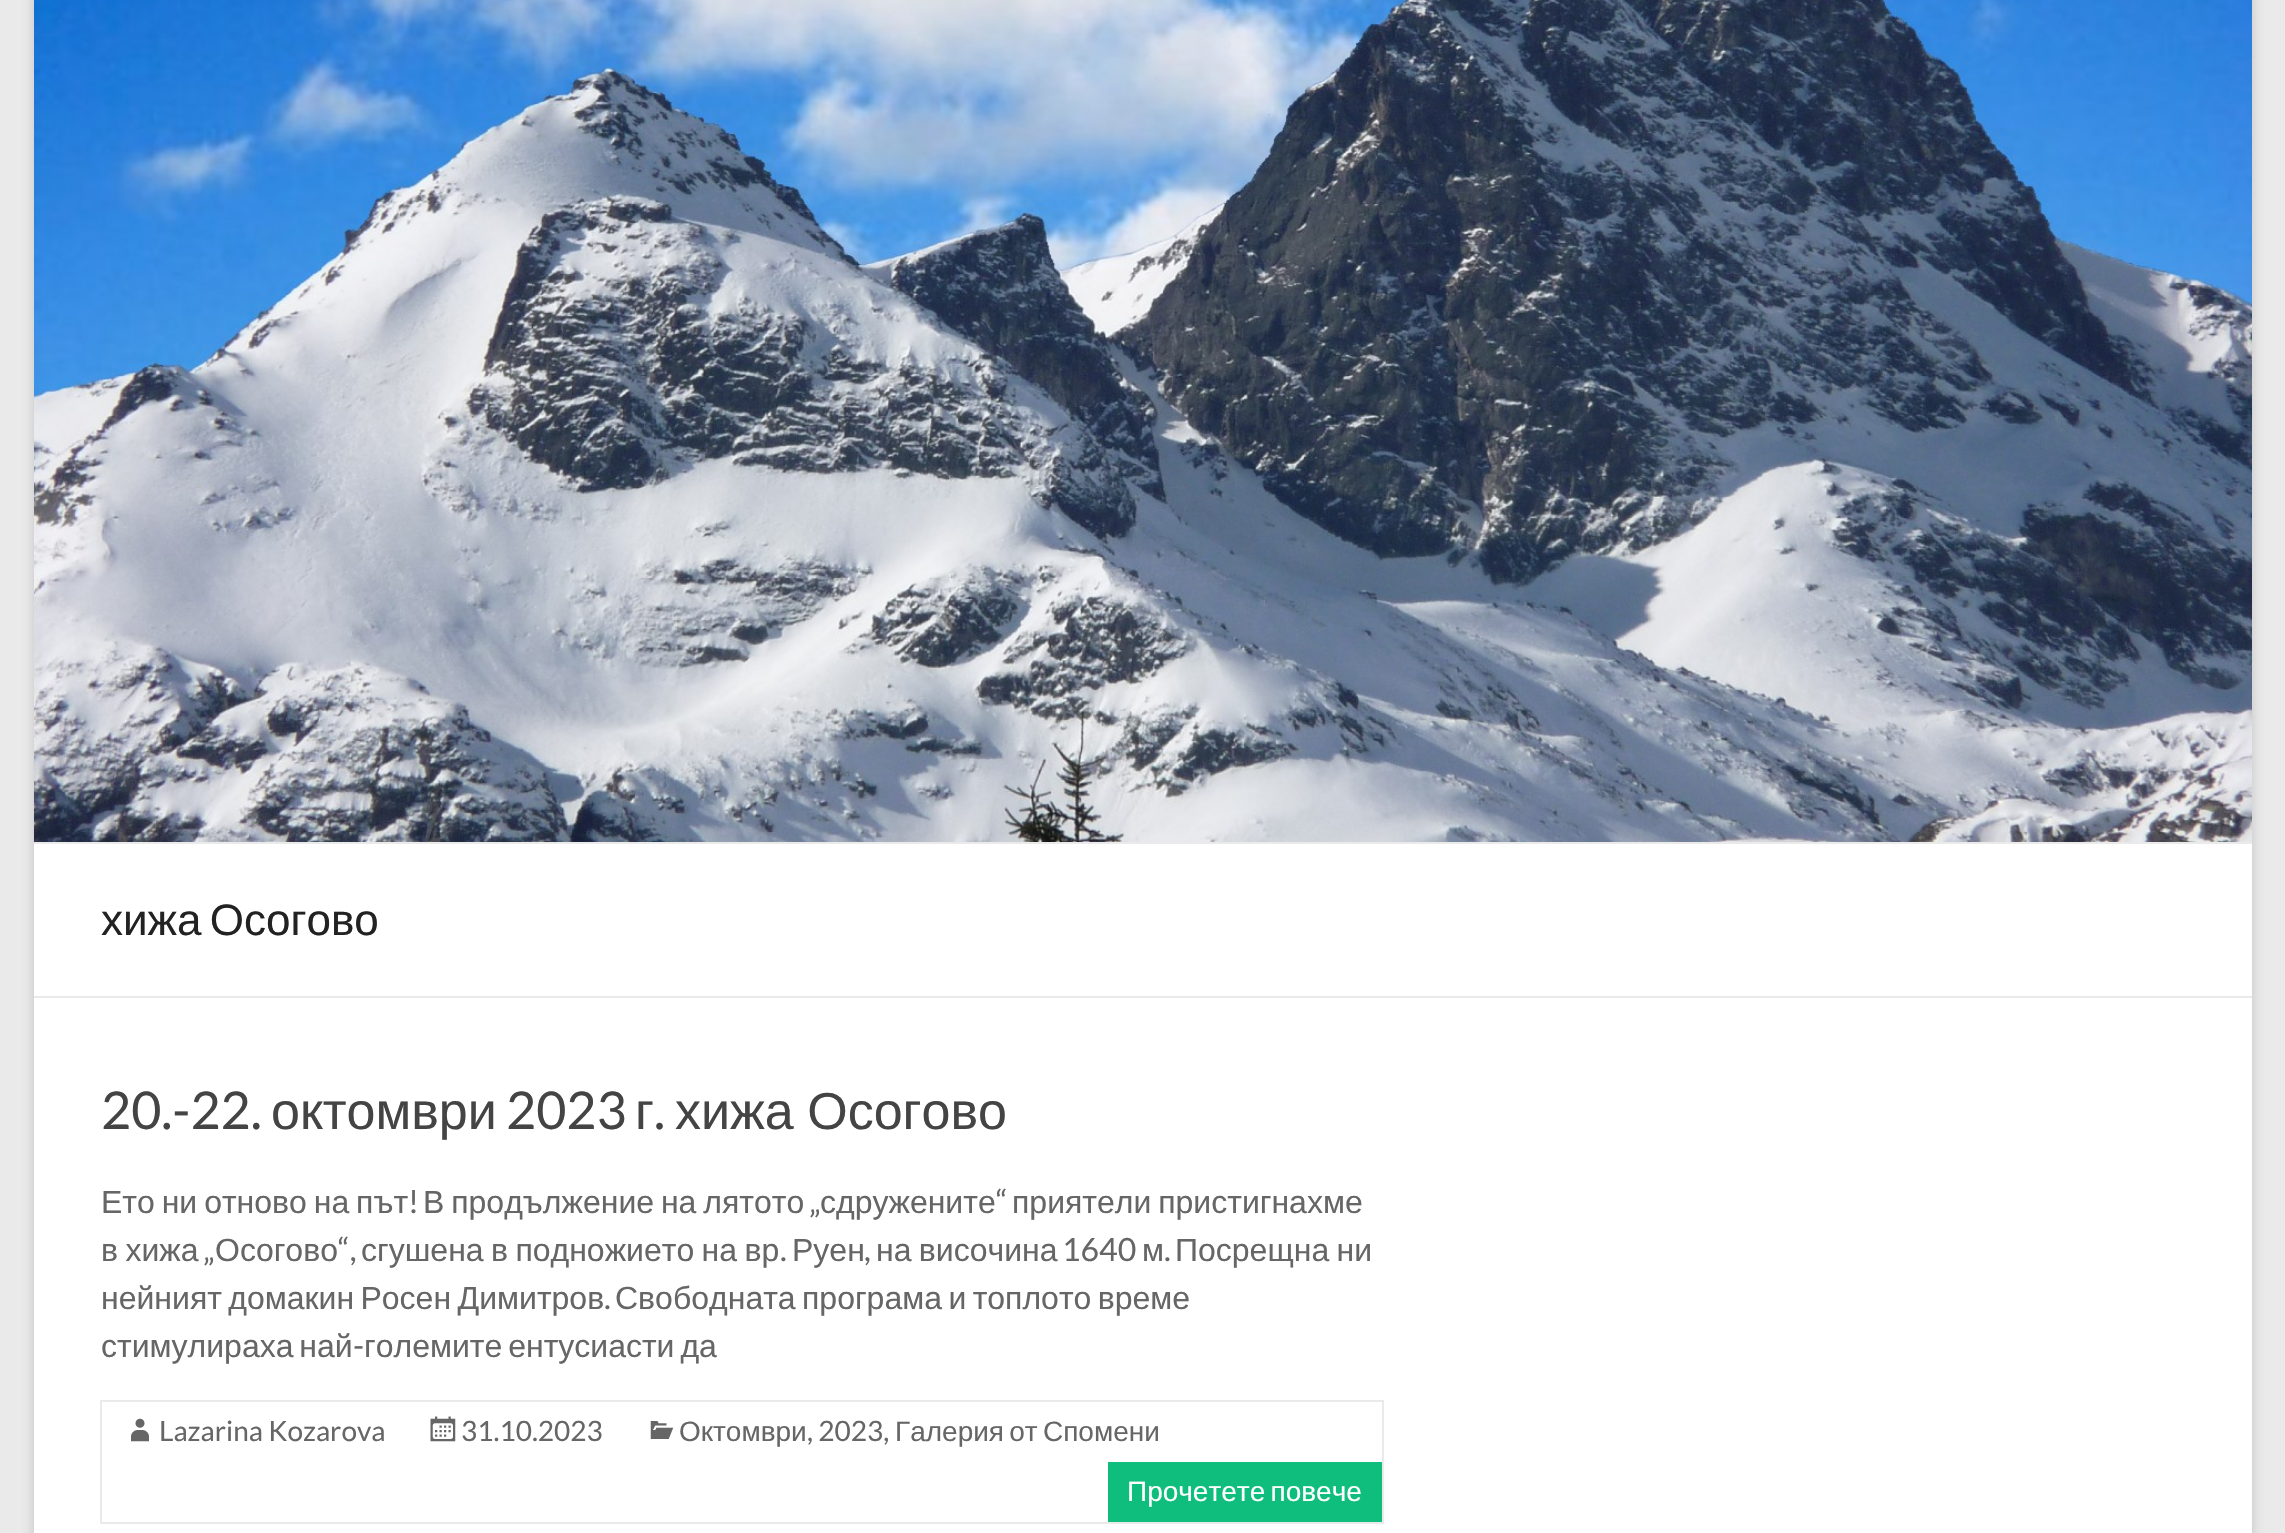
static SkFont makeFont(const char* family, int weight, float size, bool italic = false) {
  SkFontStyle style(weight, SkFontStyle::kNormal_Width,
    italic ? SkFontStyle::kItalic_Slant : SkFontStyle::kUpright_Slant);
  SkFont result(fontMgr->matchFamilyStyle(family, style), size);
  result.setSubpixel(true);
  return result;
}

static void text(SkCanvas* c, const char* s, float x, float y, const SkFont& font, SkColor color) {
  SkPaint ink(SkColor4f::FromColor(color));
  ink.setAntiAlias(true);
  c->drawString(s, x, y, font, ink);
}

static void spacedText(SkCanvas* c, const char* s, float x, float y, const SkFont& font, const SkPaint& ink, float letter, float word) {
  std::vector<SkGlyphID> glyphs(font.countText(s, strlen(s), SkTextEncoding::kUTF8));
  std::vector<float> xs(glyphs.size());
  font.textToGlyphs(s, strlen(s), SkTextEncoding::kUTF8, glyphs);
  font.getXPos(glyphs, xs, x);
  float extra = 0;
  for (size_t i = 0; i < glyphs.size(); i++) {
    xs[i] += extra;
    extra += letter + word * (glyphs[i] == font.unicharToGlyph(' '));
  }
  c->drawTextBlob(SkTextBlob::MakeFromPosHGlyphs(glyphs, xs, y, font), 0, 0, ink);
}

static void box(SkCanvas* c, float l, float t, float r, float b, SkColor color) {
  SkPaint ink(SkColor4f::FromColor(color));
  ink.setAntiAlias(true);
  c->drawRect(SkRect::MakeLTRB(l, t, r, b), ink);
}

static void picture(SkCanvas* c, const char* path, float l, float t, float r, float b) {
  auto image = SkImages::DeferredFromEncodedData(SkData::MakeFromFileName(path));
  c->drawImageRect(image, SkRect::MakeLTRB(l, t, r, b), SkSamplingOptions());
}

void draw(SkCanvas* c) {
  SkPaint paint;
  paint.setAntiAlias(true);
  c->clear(0xffeaeaea);
  paint.setColor(0x4d646464);
  paint.setMaskFilter(SkMaskFilter::MakeBlur(kNormal_SkBlurStyle, 6));
  c->drawRect(SkRect::MakeLTRB(34, -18, 2252, 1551), paint);
  paint.setMaskFilter(nullptr);
  box(c, 34, 844, 2252, 1533, 0xffffffff);
  picture(c, "img_01.png", 34, 0, 2252, 842);
  box(c, 34, 842, 2252, 844, 0xffeaeaea);
  box(c, 34, 996, 2252, 998, 0xffeaeaea);
  SkFont face1 = makeFont("Liberation Sans", 400, 44);
  paint.setColor(0xff222222);
  spacedText(c, "хижа Осогово", 101, 935, face1, paint, 0, -4);
  SkFont face2 = makeFont("Lato", 400, 52);
  text(c, "20.-22.", 101, 1129, face2, 0xff444444);
  SkFont face3 = makeFont("Liberation Sans", 400, 52);
  text(c, "октомври", 271, 1129, face3, 0xff444444);
  text(c, "2023", 506, 1129, face2, 0xff444444);
  text(c, "г", 635, 1129, face3, 0xff444444);
  text(c, ".", 654, 1129, face2, 0xff444444);
  paint.setColor(0xff444444);
  spacedText(c, "хижа Осогово", 675, 1129, face3, paint, 0, -1);
  SkFont face4 = makeFont("Liberation Sans", 400, 32);
  paint.setColor(0xff666666);
  spacedText(c, "Ето ни отново на път", 101, 1213, face4, paint, 0, -2);
  SkFont face5 = makeFont("Lato", 400, 32);
  text(c, "!", 408, 1213, face5, 0xff666666);
  spacedText(c, "В продължение на лятото", 423, 1213, face4, paint, 0, -2);
  text(c, "„", 809, 1213, face5, 0xff666666);
  text(c, "сдружените", 820, 1213, face4, 0xff666666);
  text(c, "“", 996, 1213, face5, 0xff666666);
  spacedText(c, "приятели пристигнахме", 1012, 1213, face4, paint, 0, -2);
  spacedText(c, "в хижа", 101, 1261, face4, paint, 0, -1.5f);
  text(c, "„", 203, 1261, face5, 0xff666666);
  text(c, "Осогово", 215, 1261, face4, 0xff666666);
  text(c, "“,", 338, 1261, face5, 0xff666666);
  spacedText(c, "сгушена в подножието на вр", 361, 1261, face4, paint, 0, -1.5f);
  text(c, ".", 780, 1261, face5, 0xff666666);
  text(c, "Руен", 792, 1261, face4, 0xff666666);
  text(c, ",", 864, 1261, face5, 0xff666666);
  spacedText(c, "на височина", 876, 1261, face4, paint, 0, -1.5f);
  text(c, "1640", 1062, 1261, face5, 0xff666666);
  text(c, "м", 1142, 1261, face4, 0xff666666);
  text(c, ".", 1164, 1261, face5, 0xff666666);
  spacedText(c, "Посрещна ни", 1175, 1261, face4, paint, 0, -1.5f);
  spacedText(c, "нейният домакин Росен Димитров", 101, 1309, face4, paint, 0, -2.5f);
  text(c, ".", 604, 1309, face5, 0xff666666);
  spacedText(c, "Свободната програма и топлото време", 615, 1309, face4, paint, 0, -2.5f);
  spacedText(c, "стимулираха най", 101, 1357, face4, paint, 0, -3);
  text(c, "-", 353, 1357, face5, 0xff666666);
  spacedText(c, "големите ентусиасти да", 364, 1357, face4, paint, 0, -3);
  paint.setStyle(SkPaint::kStroke_Style);
  paint.setStrokeWidth(2);
  paint.setColor(0xffeaeaea);
  c->drawRect(SkRect::MakeLTRB(101, 1401, 1383, 1523), paint);
  picture(c, "img_02.png", 131, 1418, 149, 1442);
  SkFont face6 = makeFont("Lato", 400, 28);
  text(c, "Lazarina Kozarova", 159, 1441, face6, 0xff666666);
  picture(c, "img_03.png", 430, 1416, 456, 1442);
  text(c, "31.10.2023", 461, 1441, face6, 0xff666666);
  picture(c, "img_04.png", 650, 1421, 674, 1439);
  SkFont face7 = makeFont("Liberation Sans", 400, 28);
  text(c, "Октомври", 679, 1441, face7, 0xff666666);
  text(c, ", 2023,", 807, 1441, face6, 0xff666666);
  paint.setStyle(SkPaint::kFill_Style);
  paint.setColor(0xff666666);
  spacedText(c, "Галерия от Спомени", 895, 1441, face7, paint, 0, -2.5f);
  box(c, 1108, 1462, 1382, 1522, 0xff0fbe7c);
  paint.setColor(0xffffffff);
  spacedText(c, "Прочетете повече", 1127, 1501, face7, paint, 0, -2.5f);
}
